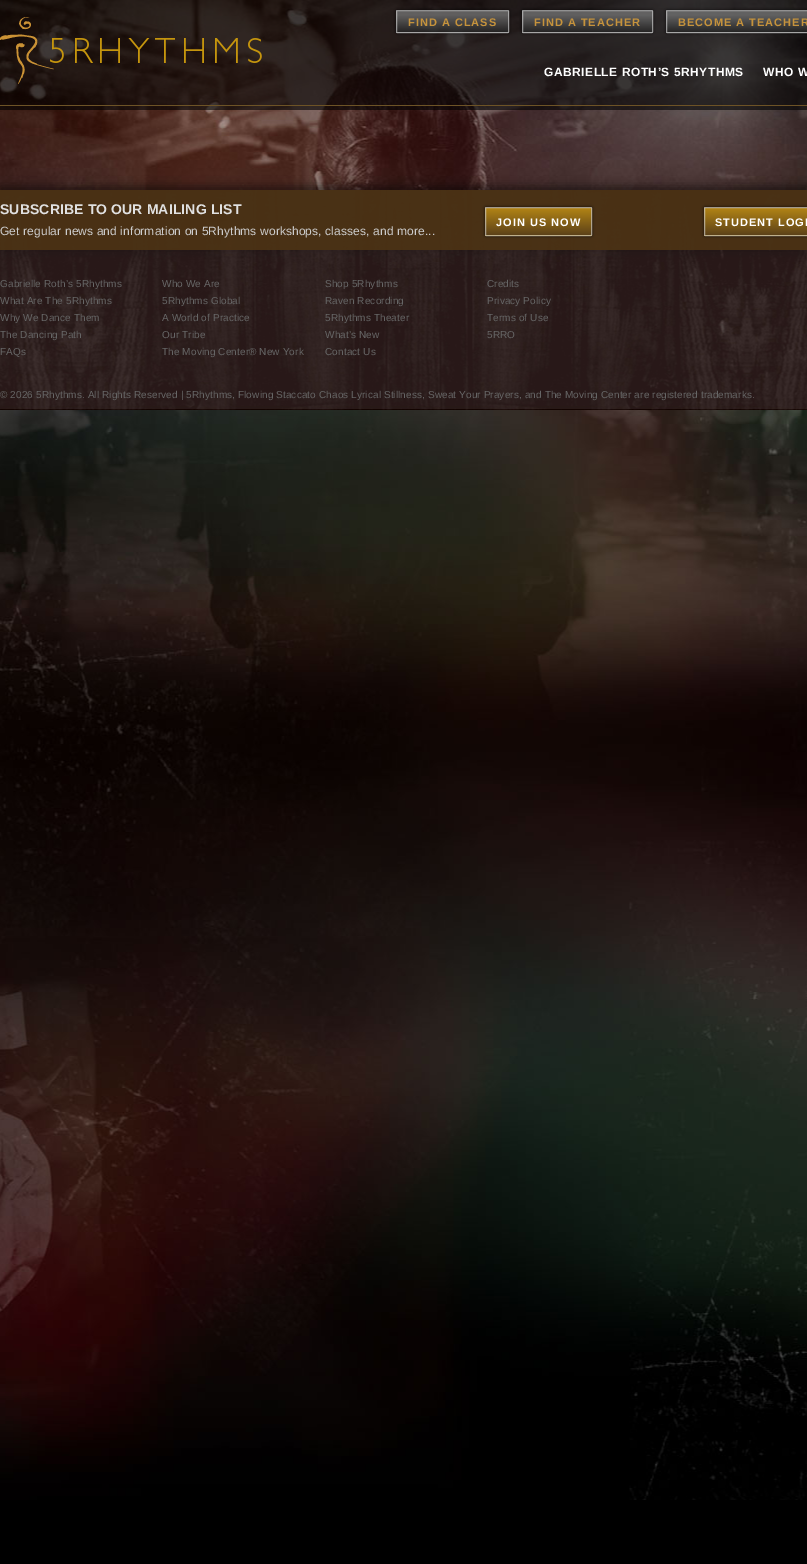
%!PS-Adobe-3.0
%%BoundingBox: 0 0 807 1564
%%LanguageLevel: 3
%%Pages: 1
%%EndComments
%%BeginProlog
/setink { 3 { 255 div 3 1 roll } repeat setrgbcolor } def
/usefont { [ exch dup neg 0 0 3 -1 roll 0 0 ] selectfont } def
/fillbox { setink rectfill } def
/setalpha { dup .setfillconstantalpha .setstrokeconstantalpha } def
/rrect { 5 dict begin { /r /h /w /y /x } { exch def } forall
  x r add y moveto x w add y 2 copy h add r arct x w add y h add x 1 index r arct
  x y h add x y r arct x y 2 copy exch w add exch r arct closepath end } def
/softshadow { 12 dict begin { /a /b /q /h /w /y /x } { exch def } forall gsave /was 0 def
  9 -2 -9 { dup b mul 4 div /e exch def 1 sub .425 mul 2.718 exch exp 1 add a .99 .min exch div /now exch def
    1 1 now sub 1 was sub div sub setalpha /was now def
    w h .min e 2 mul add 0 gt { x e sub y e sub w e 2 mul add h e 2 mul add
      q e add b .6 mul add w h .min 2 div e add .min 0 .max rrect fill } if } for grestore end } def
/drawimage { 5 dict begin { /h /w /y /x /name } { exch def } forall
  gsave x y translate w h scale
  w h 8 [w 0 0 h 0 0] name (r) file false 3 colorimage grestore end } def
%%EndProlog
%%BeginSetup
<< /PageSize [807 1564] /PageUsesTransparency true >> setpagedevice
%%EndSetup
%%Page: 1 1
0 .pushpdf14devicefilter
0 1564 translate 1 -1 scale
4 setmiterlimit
0 0 807 1564 0 0 0 fillbox
(assets/img1.rgb) 0 800 807 700 drawimage
(assets/img2.rgb) 0 0 807 800 drawimage
0.6 setalpha
0 0 807 110 0 0 0 fillbox
1 setalpha
0 105 807 1 109 83 38 fillbox
(assets/img3.rgb) 0 17 262 67 drawimage
gsave
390 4 moveto 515 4 lineto 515 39 lineto 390 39 lineto closepath 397 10 moveto 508 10 lineto 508.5 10 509 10.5 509 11 curveto 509 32 lineto 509 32.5 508.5 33 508 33 curveto 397 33 lineto 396.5 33 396 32.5 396 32 curveto 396 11 lineto 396 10.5 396.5 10 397 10 curveto closepath eoclip newpath
0 0 0 setink
396 10 113 23 1 1.5 0.7 softshadow
grestore
0.8 setalpha
gsave 397 10 moveto 508 10 lineto 508.5 10 509 10.5 509 11 curveto 396 11 lineto 396 10.5 396.5 10 397 10 curveto closepath clip newpath
<< /ShadingType 2 /ColorSpace /DeviceRGB /Coords [453 -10 453 11] /Extend [true true] /Function << /FunctionType 3 /Domain [0 1] /Functions [<< /FunctionType 2 /Domain [0 1] /C0 [0.439 0.439 0.439] /C1 [0.439 0.439 0.439] /N 1 >> << /FunctionType 2 /Domain [0 1] /C0 [0.439 0.439 0.439] /C1 [0.145 0.145 0.145] /N 1 >>] /Bounds [0.2] /Encode [0 1 0 1] >> >> shfill grestore
gsave 396 11 moveto 509 11 lineto 509 32 lineto 396 32 lineto closepath clip newpath
<< /ShadingType 2 /ColorSpace /DeviceRGB /Coords [453 11 453 32] /Extend [true true] /Function << /FunctionType 3 /Domain [0 1] /Functions [<< /FunctionType 2 /Domain [0 1] /C0 [0.439 0.439 0.439] /C1 [0.439 0.439 0.439] /N 1 >> << /FunctionType 2 /Domain [0 1] /C0 [0.439 0.439 0.439] /C1 [0.145 0.145 0.145] /N 1 >>] /Bounds [0.2] /Encode [0 1 0 1] >> >> shfill grestore
gsave 396 32 moveto 509 32 lineto 509 32.5 508.5 33 508 33 curveto 397 33 lineto 396.5 33 396 32.5 396 32 curveto closepath clip newpath
<< /ShadingType 2 /ColorSpace /DeviceRGB /Coords [453 32 453 53] /Extend [true true] /Function << /FunctionType 3 /Domain [0 1] /Functions [<< /FunctionType 2 /Domain [0 1] /C0 [0.439 0.439 0.439] /C1 [0.439 0.439 0.439] /N 1 >> << /FunctionType 2 /Domain [0 1] /C0 [0.439 0.439 0.439] /C1 [0.145 0.145 0.145] /N 1 >>] /Bounds [0.2] /Encode [0 1 0 1] >> >> shfill grestore
0.65 setalpha
204 204 204 setink
396.5 10.5 112 22 0.5 rrect stroke
/LiberationSans-Bold 11 usefont
1 setalpha
198 147 60 setink
408 26 moveto 1 0 (FIND A CLASS) ashow
gsave
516 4 moveto 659 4 lineto 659 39 lineto 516 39 lineto closepath 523 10 moveto 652 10 lineto 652.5 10 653 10.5 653 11 curveto 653 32 lineto 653 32.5 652.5 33 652 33 curveto 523 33 lineto 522.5 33 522 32.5 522 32 curveto 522 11 lineto 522 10.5 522.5 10 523 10 curveto closepath eoclip newpath
0 0 0 setink
522 10 131 23 1 1.5 0.7 softshadow
grestore
0.8 setalpha
gsave 523 10 moveto 652 10 lineto 652.5 10 653 10.5 653 11 curveto 522 11 lineto 522 10.5 522.5 10 523 10 curveto closepath clip newpath
<< /ShadingType 2 /ColorSpace /DeviceRGB /Coords [588 -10 588 11] /Extend [true true] /Function << /FunctionType 3 /Domain [0 1] /Functions [<< /FunctionType 2 /Domain [0 1] /C0 [0.439 0.439 0.439] /C1 [0.439 0.439 0.439] /N 1 >> << /FunctionType 2 /Domain [0 1] /C0 [0.439 0.439 0.439] /C1 [0.145 0.145 0.145] /N 1 >>] /Bounds [0.2] /Encode [0 1 0 1] >> >> shfill grestore
gsave 522 11 moveto 653 11 lineto 653 32 lineto 522 32 lineto closepath clip newpath
<< /ShadingType 2 /ColorSpace /DeviceRGB /Coords [588 11 588 32] /Extend [true true] /Function << /FunctionType 3 /Domain [0 1] /Functions [<< /FunctionType 2 /Domain [0 1] /C0 [0.439 0.439 0.439] /C1 [0.439 0.439 0.439] /N 1 >> << /FunctionType 2 /Domain [0 1] /C0 [0.439 0.439 0.439] /C1 [0.145 0.145 0.145] /N 1 >>] /Bounds [0.2] /Encode [0 1 0 1] >> >> shfill grestore
gsave 522 32 moveto 653 32 lineto 653 32.5 652.5 33 652 33 curveto 523 33 lineto 522.5 33 522 32.5 522 32 curveto closepath clip newpath
<< /ShadingType 2 /ColorSpace /DeviceRGB /Coords [588 32 588 53] /Extend [true true] /Function << /FunctionType 3 /Domain [0 1] /Functions [<< /FunctionType 2 /Domain [0 1] /C0 [0.439 0.439 0.439] /C1 [0.439 0.439 0.439] /N 1 >> << /FunctionType 2 /Domain [0 1] /C0 [0.439 0.439 0.439] /C1 [0.145 0.145 0.145] /N 1 >>] /Bounds [0.2] /Encode [0 1 0 1] >> >> shfill grestore
0.65 setalpha
204 204 204 setink
522.5 10.5 130 22 0.5 rrect stroke
1 setalpha
198 147 60 setink
534 26 moveto 1 0 (FIND A TEACHER) ashow
gsave
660 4 moveto 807 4 lineto 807 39 lineto 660 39 lineto closepath 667 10 moveto 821 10 lineto 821.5 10 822 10.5 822 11 curveto 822 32 lineto 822 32.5 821.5 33 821 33 curveto 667 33 lineto 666.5 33 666 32.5 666 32 curveto 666 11 lineto 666 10.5 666.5 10 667 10 curveto closepath eoclip newpath
0 0 0 setink
666 10 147 23 1 1.5 0.7 softshadow
grestore
0.8 setalpha
gsave 667 10 moveto 807 10 lineto 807.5 10 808 10.5 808 11 curveto 666 11 lineto 666 10.5 666.5 10 667 10 curveto closepath clip newpath
<< /ShadingType 2 /ColorSpace /DeviceRGB /Coords [744 -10 744 11] /Extend [true true] /Function << /FunctionType 3 /Domain [0 1] /Functions [<< /FunctionType 2 /Domain [0 1] /C0 [0.439 0.439 0.439] /C1 [0.439 0.439 0.439] /N 1 >> << /FunctionType 2 /Domain [0 1] /C0 [0.439 0.439 0.439] /C1 [0.145 0.145 0.145] /N 1 >>] /Bounds [0.2] /Encode [0 1 0 1] >> >> shfill grestore
gsave 666 11 moveto 807 11 lineto 807 32 lineto 666 32 lineto closepath clip newpath
<< /ShadingType 2 /ColorSpace /DeviceRGB /Coords [744 11 744 32] /Extend [true true] /Function << /FunctionType 3 /Domain [0 1] /Functions [<< /FunctionType 2 /Domain [0 1] /C0 [0.439 0.439 0.439] /C1 [0.439 0.439 0.439] /N 1 >> << /FunctionType 2 /Domain [0 1] /C0 [0.439 0.439 0.439] /C1 [0.145 0.145 0.145] /N 1 >>] /Bounds [0.2] /Encode [0 1 0 1] >> >> shfill grestore
gsave 666 32 moveto 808 32 lineto 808 32.5 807.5 33 807 33 curveto 667 33 lineto 666.5 33 666 32.5 666 32 curveto closepath clip newpath
<< /ShadingType 2 /ColorSpace /DeviceRGB /Coords [744 32 744 53] /Extend [true true] /Function << /FunctionType 3 /Domain [0 1] /Functions [<< /FunctionType 2 /Domain [0 1] /C0 [0.439 0.439 0.439] /C1 [0.439 0.439 0.439] /N 1 >> << /FunctionType 2 /Domain [0 1] /C0 [0.439 0.439 0.439] /C1 [0.145 0.145 0.145] /N 1 >>] /Bounds [0.2] /Encode [0 1 0 1] >> >> shfill grestore
0.65 setalpha
204 204 204 setink
666.5 10.5 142 22 0.5 rrect stroke
1 setalpha
198 147 60 setink
678 26 moveto 1 0 (BECOME A TEACHER) ashow
/LiberationSans-Bold 12 usefont
255 255 255 setink
544 76 moveto 0.5 0 (GABRIELLE ROTH’S 5RHYTHMS) ashow
763 76 moveto 0.5 0 (WHO W) ashow
(assets/img4.rgb) 0 190 807 220 drawimage
gsave
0 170 moveto 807 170 lineto 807 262 lineto 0 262 lineto closepath 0 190 moveto 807 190 lineto 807 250 lineto 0 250 lineto closepath eoclip newpath
0 0 0 setink
0 186 807 60 0 5 0.5 softshadow
grestore
0.93 setalpha
0 190 807 60 75 50 20 fillbox
/LiberationSans-Bold 14 usefont
1 setalpha
225 225 225 setink
0 214 moveto 0.12 0 (SUBSCRIBE TO OUR MAILING LIST) ashow
/LiberationSans-Regular 12 usefont
204 204 204 setink
0 235 moveto 0.12 0 (Get regular news and information on 5Rhythms workshops, classes, and more...) ashow
0 0 0 setink
485 207 107 29 1 1.5 0.7 softshadow
0.8 setalpha
gsave 486 207 moveto 591 207 lineto 591.5 207 592 207.5 592 208 curveto 485 208 lineto 485 207.5 485.5 207 486 207 curveto closepath clip newpath
<< /ShadingType 2 /ColorSpace /DeviceRGB /Coords [539 181 539 208] /Extend [true true] /Function << /FunctionType 2 /Domain [0 1] /C0 [0.8 0.6 0.082] /C1 [0.384 0.275 0.102] /N 1 >> >> shfill grestore
1 setalpha
gsave 485 208 moveto 592 208 lineto 592 235 lineto 485 235 lineto closepath clip newpath
<< /ShadingType 2 /ColorSpace /DeviceRGB /Coords [539 208 539 235] /Extend [true true] /Function << /FunctionType 2 /Domain [0 1] /C0 [0.698 0.518 0.082] /C1 [0.365 0.259 0.098] /N 1 >> >> shfill grestore
0.8 setalpha
gsave 485 235 moveto 592 235 lineto 592 235.5 591.5 236 591 236 curveto 486 236 lineto 485.5 236 485 235.5 485 235 curveto closepath clip newpath
<< /ShadingType 2 /ColorSpace /DeviceRGB /Coords [539 235 539 262] /Extend [true true] /Function << /FunctionType 2 /Domain [0 1] /C0 [0.8 0.6 0.082] /C1 [0.384 0.275 0.102] /N 1 >> >> shfill grestore
0.65 setalpha
204 204 204 setink
485.5 207.5 106 28 0.5 rrect stroke
/LiberationSans-Bold 11 usefont
1 setalpha
255 255 255 setink
496 226 moveto 1 0 (JOIN US NOW) ashow
0 0 0 setink
704 207 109 29 1 1.5 0.7 softshadow
0.8 setalpha
gsave 705 207 moveto 807 207 lineto 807.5 207 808 207.5 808 208 curveto 704 208 lineto 704 207.5 704.5 207 705 207 curveto closepath clip newpath
<< /ShadingType 2 /ColorSpace /DeviceRGB /Coords [767 181 767 208] /Extend [true true] /Function << /FunctionType 2 /Domain [0 1] /C0 [0.8 0.6 0.082] /C1 [0.384 0.275 0.102] /N 1 >> >> shfill grestore
1 setalpha
gsave 704 208 moveto 807 208 lineto 807 235 lineto 704 235 lineto closepath clip newpath
<< /ShadingType 2 /ColorSpace /DeviceRGB /Coords [767 208 767 235] /Extend [true true] /Function << /FunctionType 2 /Domain [0 1] /C0 [0.698 0.518 0.082] /C1 [0.365 0.259 0.098] /N 1 >> >> shfill grestore
0.8 setalpha
gsave 704 235 moveto 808 235 lineto 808 235.5 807.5 236 807 236 curveto 705 236 lineto 704.5 236 704 235.5 704 235 curveto closepath clip newpath
<< /ShadingType 2 /ColorSpace /DeviceRGB /Coords [767 235 767 262] /Extend [true true] /Function << /FunctionType 2 /Domain [0 1] /C0 [0.8 0.6 0.082] /C1 [0.384 0.275 0.102] /N 1 >> >> shfill grestore
0.65 setalpha
204 204 204 setink
704.5 207.5 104 28 0.5 rrect stroke
1 setalpha
255 255 255 setink
715 226 moveto 1 0 (STUDENT LOGI) ashow
/LiberationSans-Regular 10 usefont
102 102 102 setink
0 287 moveto 0.12 0 (Gabrielle Roth’s 5Rhythms) ashow
0 304 moveto 0.12 0 (What Are The 5Rhythms) ashow
0 321 moveto 0.12 0 (Why We Dance Them) ashow
0 338 moveto 0.12 0 (The Dancing Path) ashow
0 355 moveto 0.12 0 (FAQs) ashow
162 287 moveto 0.12 0 (Who We Are) ashow
162 304 moveto 0.12 0 (5Rhythms Global) ashow
162 321 moveto 0.12 0 (A World of Practice) ashow
162 338 moveto 0.12 0 (Our Tribe) ashow
162 355 moveto 0.12 0 (The Moving Center® New York) ashow
325 287 moveto 0.12 0 (Shop 5Rhythms) ashow
325 304 moveto 0.12 0 (Raven Recording) ashow
325 321 moveto 0.12 0 (5Rhythms Theater) ashow
325 338 moveto 0.12 0 (What’s New) ashow
325 355 moveto 0.12 0 (Contact Us) ashow
487 287 moveto 0.12 0 (Credits) ashow
487 304 moveto 0.12 0 (Privacy Policy) ashow
487 321 moveto 0.12 0 (Terms of Use) ashow
487 338 moveto 0.12 0 (5RRO) ashow
0 398 moveto 0.12 0 (© 2026 5Rhythms. All Rights Reserved | 5Rhythms, Flowing Staccato Chaos Lyrical Stillness, Sweat Your Prayers, and The Moving Center are registered trademarks.) ashow
.poppdf14devicefilter showpage
%%EOF
